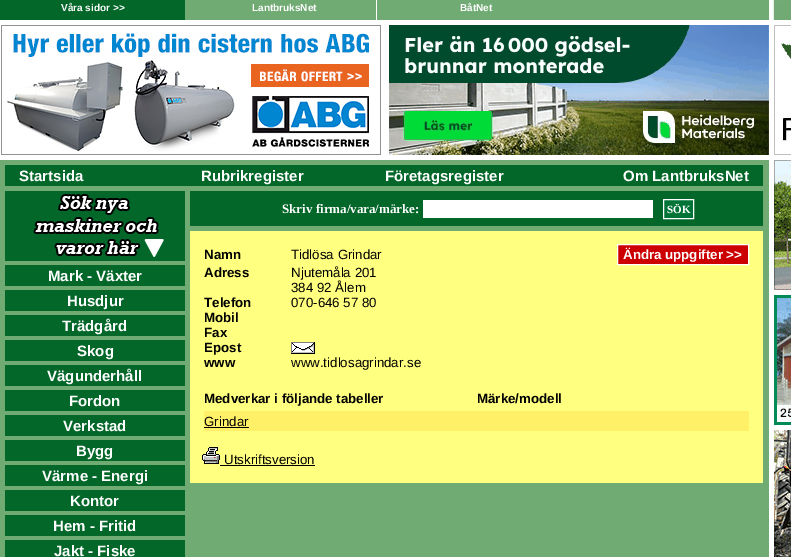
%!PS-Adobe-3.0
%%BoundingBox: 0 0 791 557
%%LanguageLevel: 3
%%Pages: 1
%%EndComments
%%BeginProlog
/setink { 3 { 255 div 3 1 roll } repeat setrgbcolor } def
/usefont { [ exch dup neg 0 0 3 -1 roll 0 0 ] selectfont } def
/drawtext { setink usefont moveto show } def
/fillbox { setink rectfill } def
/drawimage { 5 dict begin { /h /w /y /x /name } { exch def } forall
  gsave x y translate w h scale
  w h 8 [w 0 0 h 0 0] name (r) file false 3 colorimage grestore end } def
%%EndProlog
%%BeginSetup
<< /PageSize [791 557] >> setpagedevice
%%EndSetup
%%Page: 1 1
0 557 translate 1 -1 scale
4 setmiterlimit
0 0 791 557 255 255 255 fillbox
185 0 584 20 113 171 116 fillbox
0 0 185 20 3 103 41 fillbox
(Våra sidor >>) 61 11 /LiberationSans-Bold 10 255 255 255 drawtext
376 0 1 20 255 255 255 fillbox
(LantbruksNet) 252 11 /LiberationSans-Bold 10 255 255 255 drawtext
(BåtNet) 460 11 /LiberationSans-Bold 10 255 255 255 drawtext
(assets/img1.rgb) 772 0 19 20 drawimage
(assets/img2.rgb) 1 25 380 130 drawimage
(assets/img3.rgb) 389 25 380 130 drawimage
(assets/img4.rgb) 774 25 17 130 drawimage
0 160 769 397 113 171 116 fillbox
5 165 758 21 3 103 41 fillbox
(Startsida) 19 181 /LiberationSans-Bold 15 255 255 255 drawtext
(Rubrikregister) 201 181 /LiberationSans-Bold 15 255 255 255 drawtext
(Företagsregister) 385 181 /LiberationSans-Bold 15 255 255 255 drawtext
(Om LantbruksNet) 623 181 /LiberationSans-Bold 15 255 255 255 drawtext
5 191 180 70 3 103 41 fillbox
(assets/img5.rgb) 33 194 131 63 drawimage
5 265 180 21 3 103 41 fillbox
(Mark - Växter) 48 281 /LiberationSans-Bold 15 255 255 255 drawtext
5 290 180 21 3 103 41 fillbox
(Husdjur) 67 306 /LiberationSans-Bold 15 255 255 255 drawtext
5 315 180 21 3 103 41 fillbox
(Trädgård) 62 331 /LiberationSans-Bold 15 255 255 255 drawtext
5 340 180 21 3 103 41 fillbox
(Skog) 77 356 /LiberationSans-Bold 15 255 255 255 drawtext
5 365 180 21 3 103 41 fillbox
(Vägunderhåll) 47 381 /LiberationSans-Bold 15 255 255 255 drawtext
5 390 180 21 3 103 41 fillbox
(Fordon) 69 406 /LiberationSans-Bold 15 255 255 255 drawtext
5 415 180 21 3 103 41 fillbox
(Verkstad) 63 431 /LiberationSans-Bold 15 255 255 255 drawtext
5 440 180 21 3 103 41 fillbox
(Bygg) 76 456 /LiberationSans-Bold 15 255 255 255 drawtext
5 465 180 21 3 103 41 fillbox
(Värme - Energi) 42 481 /LiberationSans-Bold 15 255 255 255 drawtext
5 490 180 21 3 103 41 fillbox
(Kontor) 70 506 /LiberationSans-Bold 15 255 255 255 drawtext
5 515 180 21 3 103 41 fillbox
(Hem - Fritid) 53 531 /LiberationSans-Bold 15 255 255 255 drawtext
5 540 180 17 3 103 41 fillbox
(Jakt - Fiske) 54 556 /LiberationSans-Bold 15 255 255 255 drawtext
190 191 573 35 3 103 41 fillbox
(Skriv firma/vara/märke:) 282 213 /LiberationSerif-Bold 13 255 255 255 drawtext
423 200 230 18 255 255 255 fillbox
0 115 54 setink
663.5 199.5 moveto 693.5 199.5 lineto 693.5 218.5 lineto 663.5 218.5 lineto closepath gsave fill grestore
255 255 255 setink
stroke
(SÖK) 667 213 /LiberationSerif-Bold 11 255 255 255 drawtext
190 231 573 252 255 255 128 fillbox
(Namn) 204 259 /LiberationSans-Bold 13.3 0 0 0 drawtext
(Tidlösa Grindar) 291 259 /LiberationSans-Regular 13.3 0 0 0 drawtext
204 0 0 setink
617.5 244.5 moveto 748.5 244.5 lineto 748.5 264.5 lineto 617.5 264.5 lineto closepath gsave fill grestore
255 255 255 setink
stroke
(Ändra uppgifter >>) 623 259 /LiberationSans-Bold 13.3 255 255 255 drawtext
(Adress) 204 277 /LiberationSans-Bold 13.3 0 0 0 drawtext
(Njutemåla 201) 291 277 /LiberationSans-Regular 13.3 0 0 0 drawtext
(384 92 Ålem) 291 292 /LiberationSans-Regular 13.3 0 0 0 drawtext
(Telefon) 204 307 /LiberationSans-Bold 13.3 0 0 0 drawtext
(070-646 57 80) 291 307 /LiberationSans-Regular 13.3 0 0 0 drawtext
(Mobil) 204 322 /LiberationSans-Bold 13.3 0 0 0 drawtext
(Fax) 204 337 /LiberationSans-Bold 13.3 0 0 0 drawtext
(Epost) 204 352 /LiberationSans-Bold 13.3 0 0 0 drawtext
(assets/img6.rgb) 291 342 24 12 drawimage
(www) 204 367 /LiberationSans-Bold 13.3 0 0 0 drawtext
(www.tidlosagrindar.se) 291 367 /LiberationSans-Regular 13.3 0 0 0 drawtext
(Medverkar i följande tabeller) 204 403 /LiberationSans-Bold 13.3 0 0 0 drawtext
(Märke/modell) 477 403 /LiberationSans-Bold 13.3 0 0 0 drawtext
204 411 545 20 255 240 104 fillbox
(Grindar) 204 426 /LiberationSans-Regular 13.3 0 0 0 drawtext
204 427 45 1 0 0 0 fillbox
(assets/img7.rgb) 202 447 18 17 drawimage
(Utskriftsversion) 224 464 /LiberationSans-Regular 13.3 0 0 0 drawtext
220 465 95 1 0 0 0 fillbox
(assets/img8.rgb) 774 160 17 130 drawimage
(assets/img9.rgb) 774 295 17 130 drawimage
(assets/img10.rgb) 774 430 17 127 drawimage
showpage
%%EOF
